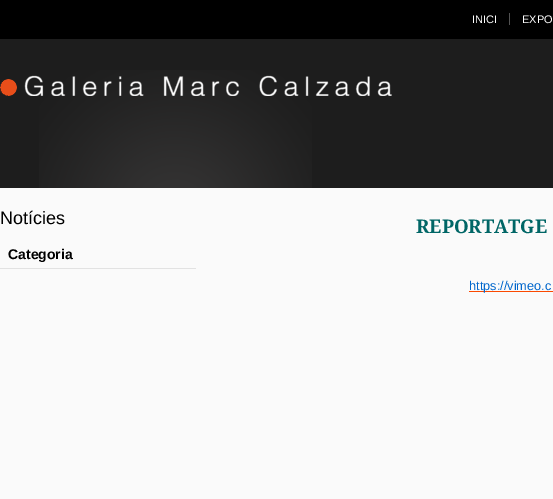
%!PS-Adobe-3.0
%%BoundingBox: 0 0 553 499
%%LanguageLevel: 3
%%Pages: 1
%%EndComments
%%BeginProlog
/setink { 3 { 255 div 3 1 roll } repeat setrgbcolor } def
/usefont { [ exch dup neg 0 0 3 -1 roll 0 0 ] selectfont } def
/drawtext { setink usefont moveto show } def
/fillbox { setink rectfill } def
/drawimage { 5 dict begin { /h /w /y /x /name } { exch def } forall
  gsave x y translate w h scale
  w h 8 [w 0 0 h 0 0] name (r) file false 3 colorimage grestore end } def
%%EndProlog
%%BeginSetup
<< /PageSize [553 499] >> setpagedevice
%%EndSetup
%%Page: 1 1
0 499 translate 1 -1 scale
4 setmiterlimit
0 0 553 499 0 0 0 fillbox
(INICI) 472 23 /LiberationSans-Regular 11 255 255 255 drawtext
509 13 1 12 82 82 82 fillbox
(EXPO) 522 23 /LiberationSans-Regular 11 255 255 255 drawtext
0 39 553 149 29 29 29 fillbox
(assets/img1.rgb) 39 70 273 118 drawimage
(assets/img2.rgb) 0 75 392 21 drawimage
0 188 553 311 250 250 250 fillbox
(Notícies) 0 224 /LiberationSans-Regular 18 0 0 0 drawtext
0 268 196 1 226 226 226 fillbox
(Categoria) 8 259 /LiberationSans-Bold 14 0 0 0 drawtext
(REPORTATGE) 416 233 /NotoSerif-Bold 18.75 0 102 102 drawtext
469 291 84 1 251 73 0 fillbox
(https://vimeo.c) 469 290 /LiberationSans-Regular 12.75 0 102 204 drawtext
showpage
%%EOF
